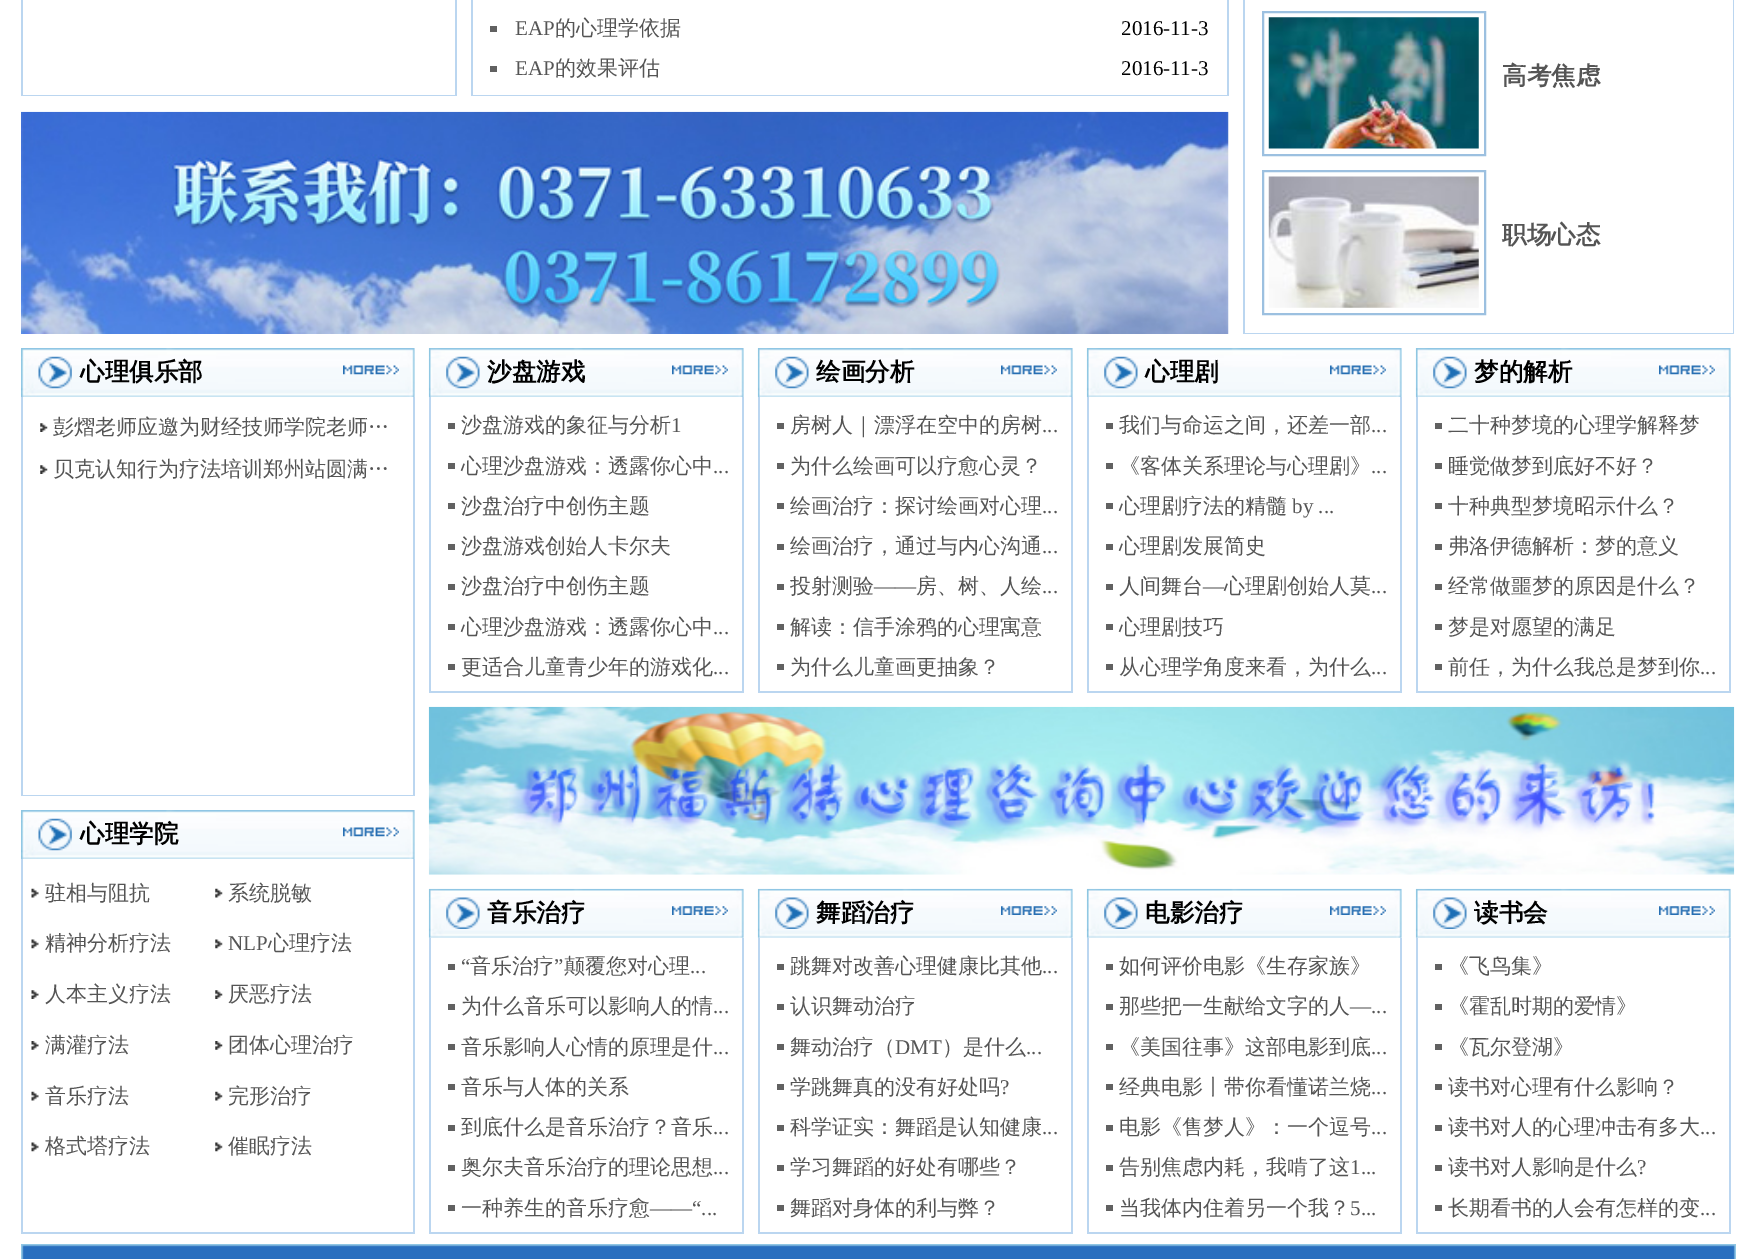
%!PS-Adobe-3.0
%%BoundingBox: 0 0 1754 1259
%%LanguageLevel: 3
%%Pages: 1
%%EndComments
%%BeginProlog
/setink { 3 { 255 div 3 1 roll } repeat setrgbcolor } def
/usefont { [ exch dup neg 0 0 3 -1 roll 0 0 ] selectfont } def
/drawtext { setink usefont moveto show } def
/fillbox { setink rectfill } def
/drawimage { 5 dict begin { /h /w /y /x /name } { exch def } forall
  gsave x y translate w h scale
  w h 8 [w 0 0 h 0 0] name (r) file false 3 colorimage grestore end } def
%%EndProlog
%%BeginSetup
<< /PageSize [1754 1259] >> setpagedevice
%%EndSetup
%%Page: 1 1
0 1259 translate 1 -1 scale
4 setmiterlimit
0 0 1754 1259 255 255 255 fillbox
455 0 2 96 187 214 240 fillbox
21 95 436 1 187 214 240 fillbox
21 0 2 96 187 214 240 fillbox
1227 0 2 96 187 214 240 fillbox
471 95 758 1 187 214 240 fillbox
471 0 2 96 187 214 240 fillbox
490 26 7 6 97 97 97 fillbox
(EAP) 515 35 /LiberationSerif-Regular 21 85 85 85 drawtext
(的心理学依据) 555 35 /WenQuanYiZenHei-Medium 21 85 85 85 drawtext
(2016-11-3) 1121 35 /LiberationSerif-Regular 21 0 0 0 drawtext
490 66 7 6 97 97 97 fillbox
(EAP) 515 75 /LiberationSerif-Regular 21 85 85 85 drawtext
(的效果评估) 555 75 /WenQuanYiZenHei-Medium 21 85 85 85 drawtext
(2016-11-3) 1121 75 /LiberationSerif-Regular 21 0 0 0 drawtext
(assets/img1.rgb) 21 111 1208 223 drawimage
1733 0 1 334 187 214 240 fillbox
1243 333 491 1 187 214 240 fillbox
1243 0 2 334 187 214 240 fillbox
156 192 224 setink
2 setlinewidth
1263 12 222 143 rectstroke
(assets/img2.rgb) 1268 17 211 132 drawimage
(高考焦虑) 1502 84 /WenQuanYiZenHei-Bold 24.5 85 85 85 drawtext
156 192 224 setink
1263 171 222 143 rectstroke
(assets/img3.rgb) 1268 176 211 132 drawimage
(职场心态) 1502 243 /WenQuanYiZenHei-Bold 24.5 85 85 85 drawtext
(assets/img4.rgb) 21 348 394 49 drawimage
(assets/img5.rgb) 38 356 34 33 drawimage
(心理俱乐部) 80 380 /WenQuanYiZenHei-Bold 24.5 0 0 0 drawtext
(assets/img6.rgb) 343 365 56 10 drawimage
413 397 2 399 187 214 240 fillbox
21 795 394 1 187 214 240 fillbox
21 397 2 399 187 214 240 fillbox
(assets/img7.rgb) 40 423 8 9 drawimage
(彭熠老师应邀为财经技师学院老师…) 53 434 /WenQuanYiZenHei-Medium 21 85 85 85 drawtext
(assets/img7.rgb) 40 465 8 9 drawimage
(贝克认知行为疗法培训郑州站圆满…) 53 476 /WenQuanYiZenHei-Medium 21 85 85 85 drawtext
(assets/img4.rgb) 21 810 394 49 drawimage
(assets/img5.rgb) 38 818 34 33 drawimage
(心理学院) 80 842 /WenQuanYiZenHei-Bold 24.5 0 0 0 drawtext
(assets/img6.rgb) 343 827 56 10 drawimage
413 859 2 375 187 214 240 fillbox
21 1232 394 2 187 214 240 fillbox
21 859 2 375 187 214 240 fillbox
(assets/img8.rgb) 31 888 8 10 drawimage
(驻相与阻抗) 45 900 /WenQuanYiZenHei-Medium 21 85 85 85 drawtext
(assets/img9.rgb) 215 888 8 10 drawimage
(系统脱敏) 228 900 /WenQuanYiZenHei-Medium 21 85 85 85 drawtext
(assets/img10.rgb) 31 939 8 10 drawimage
(精神分析疗法) 45 950 /WenQuanYiZenHei-Medium 21 85 85 85 drawtext
(assets/img11.rgb) 215 939 8 10 drawimage
(NLP) 228 950 /LiberationSerif-Regular 21 85 85 85 drawtext
(心理疗法) 268 950 /WenQuanYiZenHei-Medium 21 85 85 85 drawtext
(assets/img12.rgb) 31 990 8 9 drawimage
(人本主义疗法) 45 1001 /WenQuanYiZenHei-Medium 21 85 85 85 drawtext
(assets/img13.rgb) 215 990 8 9 drawimage
(厌恶疗法) 228 1001 /WenQuanYiZenHei-Medium 21 85 85 85 drawtext
(assets/img14.rgb) 31 1041 8 9 drawimage
(满灌疗法) 45 1052 /WenQuanYiZenHei-Medium 21 85 85 85 drawtext
(assets/img15.rgb) 215 1041 8 9 drawimage
(团体心理治疗) 228 1052 /WenQuanYiZenHei-Medium 21 85 85 85 drawtext
(assets/img8.rgb) 31 1091 8 10 drawimage
(音乐疗法) 45 1103 /WenQuanYiZenHei-Medium 21 85 85 85 drawtext
(assets/img9.rgb) 215 1091 8 10 drawimage
(完形治疗) 228 1103 /WenQuanYiZenHei-Medium 21 85 85 85 drawtext
(assets/img10.rgb) 31 1142 8 10 drawimage
(格式塔疗法) 45 1153 /WenQuanYiZenHei-Medium 21 85 85 85 drawtext
(assets/img11.rgb) 215 1142 8 10 drawimage
(催眠疗法) 228 1153 /WenQuanYiZenHei-Medium 21 85 85 85 drawtext
(assets/img16.rgb) 428 348 316 49 drawimage
(assets/img17.rgb) 446 356 34 33 drawimage
(沙盘游戏) 487 380 /WenQuanYiZenHei-Bold 24.5 0 0 0 drawtext
(assets/img6.rgb) 672 365 56 10 drawimage
742 397 2 296 187 214 240 fillbox
429 691 315 2 187 214 240 fillbox
429 397 2 296 187 214 240 fillbox
448 423 7 6 97 97 97 fillbox
(沙盘游戏的象征与分析) 461 432 /WenQuanYiZenHei-Medium 21 85 85 85 drawtext
(1) 671 432 /LiberationSerif-Regular 21 85 85 85 drawtext
448 463 7 6 97 97 97 fillbox
(心理沙盘游戏：透露你心中) 461 473 /WenQuanYiZenHei-Medium 21 85 85 85 drawtext
(...) 713 473 /LiberationSerif-Regular 21 85 85 85 drawtext
448 503 7 6 97 97 97 fillbox
(沙盘治疗中创伤主题) 461 513 /WenQuanYiZenHei-Medium 21 85 85 85 drawtext
448 544 7 6 97 97 97 fillbox
(沙盘游戏创始人卡尔夫) 461 553 /WenQuanYiZenHei-Medium 21 85 85 85 drawtext
448 584 7 6 97 97 97 fillbox
(沙盘治疗中创伤主题) 461 593 /WenQuanYiZenHei-Medium 21 85 85 85 drawtext
448 624 7 6 97 97 97 fillbox
(心理沙盘游戏：透露你心中) 461 634 /WenQuanYiZenHei-Medium 21 85 85 85 drawtext
(...) 713 634 /LiberationSerif-Regular 21 85 85 85 drawtext
448 664 7 6 97 97 97 fillbox
(更适合儿童青少年的游戏化) 461 674 /WenQuanYiZenHei-Medium 21 85 85 85 drawtext
(...) 713 674 /LiberationSerif-Regular 21 85 85 85 drawtext
(assets/img16.rgb) 757 348 316 49 drawimage
(assets/img17.rgb) 775 356 34 33 drawimage
(绘画分析) 816 380 /WenQuanYiZenHei-Bold 24.5 0 0 0 drawtext
(assets/img6.rgb) 1001 365 56 10 drawimage
1071 397 2 296 187 214 240 fillbox
758 691 315 2 187 214 240 fillbox
758 397 2 296 187 214 240 fillbox
777 423 7 6 97 97 97 fillbox
(房树人｜漂浮在空中的房树) 790 432 /WenQuanYiZenHei-Medium 21 85 85 85 drawtext
(...) 1042 432 /LiberationSerif-Regular 21 85 85 85 drawtext
777 463 7 6 97 97 97 fillbox
(为什么绘画可以疗愈心灵？) 790 473 /WenQuanYiZenHei-Medium 21 85 85 85 drawtext
777 503 7 6 97 97 97 fillbox
(绘画治疗：探讨绘画对心理) 790 513 /WenQuanYiZenHei-Medium 21 85 85 85 drawtext
(...) 1042 513 /LiberationSerif-Regular 21 85 85 85 drawtext
777 544 7 6 97 97 97 fillbox
(绘画治疗，通过与内心沟通) 790 553 /WenQuanYiZenHei-Medium 21 85 85 85 drawtext
(...) 1042 553 /LiberationSerif-Regular 21 85 85 85 drawtext
777 584 7 6 97 97 97 fillbox
(投射测验) 790 593 /WenQuanYiZenHei-Medium 21 85 85 85 drawtext
(——) 874 593 /LiberationSerif-Regular 21 85 85 85 drawtext
(房、树、人绘) 916 593 /WenQuanYiZenHei-Medium 21 85 85 85 drawtext
(...) 1042 593 /LiberationSerif-Regular 21 85 85 85 drawtext
777 624 7 6 97 97 97 fillbox
(解读：信手涂鸦的心理寓意) 790 634 /WenQuanYiZenHei-Medium 21 85 85 85 drawtext
777 664 7 6 97 97 97 fillbox
(为什么儿童画更抽象？) 790 674 /WenQuanYiZenHei-Medium 21 85 85 85 drawtext
(assets/img18.rgb) 1086 348 316 49 drawimage
(assets/img17.rgb) 1104 356 34 33 drawimage
(心理剧) 1145 380 /WenQuanYiZenHei-Bold 24.5 0 0 0 drawtext
(assets/img6.rgb) 1330 365 56 10 drawimage
1400 397 2 296 187 214 240 fillbox
1087 691 315 2 187 214 240 fillbox
1087 397 2 296 187 214 240 fillbox
1106 423 7 6 97 97 97 fillbox
(我们与命运之间，还差一部) 1119 432 /WenQuanYiZenHei-Medium 21 85 85 85 drawtext
(...) 1371 432 /LiberationSerif-Regular 21 85 85 85 drawtext
1106 463 7 6 97 97 97 fillbox
(《客体关系理论与心理剧》) 1119 473 /WenQuanYiZenHei-Medium 21 85 85 85 drawtext
(...) 1371 473 /LiberationSerif-Regular 21 85 85 85 drawtext
1106 503 7 6 97 97 97 fillbox
(心理剧疗法的精髓) 1119 513 /WenQuanYiZenHei-Medium 21 85 85 85 drawtext
(by ...) 1292 513 /LiberationSerif-Regular 21 85 85 85 drawtext
1106 544 7 6 97 97 97 fillbox
(心理剧发展简史) 1119 553 /WenQuanYiZenHei-Medium 21 85 85 85 drawtext
1106 584 7 6 97 97 97 fillbox
(人间舞台) 1119 593 /WenQuanYiZenHei-Medium 21 85 85 85 drawtext
(—) 1203 593 /LiberationSerif-Regular 21 85 85 85 drawtext
(心理剧创始人莫) 1224 593 /WenQuanYiZenHei-Medium 21 85 85 85 drawtext
(...) 1371 593 /LiberationSerif-Regular 21 85 85 85 drawtext
1106 624 7 6 97 97 97 fillbox
(心理剧技巧) 1119 634 /WenQuanYiZenHei-Medium 21 85 85 85 drawtext
1106 664 7 6 97 97 97 fillbox
(从心理学角度来看，为什么) 1119 674 /WenQuanYiZenHei-Medium 21 85 85 85 drawtext
(...) 1371 674 /LiberationSerif-Regular 21 85 85 85 drawtext
(assets/img18.rgb) 1415 348 316 49 drawimage
(assets/img17.rgb) 1433 356 34 33 drawimage
(梦的解析) 1474 380 /WenQuanYiZenHei-Bold 24.5 0 0 0 drawtext
(assets/img6.rgb) 1659 365 56 10 drawimage
1729 397 2 296 187 214 240 fillbox
1416 691 315 2 187 214 240 fillbox
1416 397 2 296 187 214 240 fillbox
1435 423 7 6 97 97 97 fillbox
(二十种梦境的心理学解释梦) 1448 432 /WenQuanYiZenHei-Medium 21 85 85 85 drawtext
1435 463 7 6 97 97 97 fillbox
(睡觉做梦到底好不好？) 1448 473 /WenQuanYiZenHei-Medium 21 85 85 85 drawtext
1435 503 7 6 97 97 97 fillbox
(十种典型梦境昭示什么？) 1448 513 /WenQuanYiZenHei-Medium 21 85 85 85 drawtext
1435 544 7 6 97 97 97 fillbox
(弗洛伊德解析：梦的意义) 1448 553 /WenQuanYiZenHei-Medium 21 85 85 85 drawtext
1435 584 7 6 97 97 97 fillbox
(经常做噩梦的原因是什么？) 1448 593 /WenQuanYiZenHei-Medium 21 85 85 85 drawtext
1435 624 7 6 97 97 97 fillbox
(梦是对愿望的满足) 1448 634 /WenQuanYiZenHei-Medium 21 85 85 85 drawtext
1435 664 7 6 97 97 97 fillbox
(前任，为什么我总是梦到你) 1448 674 /WenQuanYiZenHei-Medium 21 85 85 85 drawtext
(...) 1700 674 /LiberationSerif-Regular 21 85 85 85 drawtext
(assets/img19.rgb) 428 706 1307 169 drawimage
(assets/img20.rgb) 428 888 316 50 drawimage
(assets/img21.rgb) 446 897 34 32 drawimage
(音乐治疗) 487 921 /WenQuanYiZenHei-Bold 24.5 0 0 0 drawtext
(assets/img22.rgb) 672 906 56 9 drawimage
742 938 2 296 187 214 240 fillbox
429 1232 315 2 187 214 240 fillbox
429 938 2 296 187 214 240 fillbox
448 964 7 6 97 97 97 fillbox
(“) 461 973 /LiberationSerif-Regular 21 85 85 85 drawtext
(音乐治疗) 470 973 /WenQuanYiZenHei-Medium 21 85 85 85 drawtext
(”) 554 973 /LiberationSerif-Regular 21 85 85 85 drawtext
(颠覆您对心理) 564 973 /WenQuanYiZenHei-Medium 21 85 85 85 drawtext
(...) 690 973 /LiberationSerif-Regular 21 85 85 85 drawtext
448 1004 7 6 97 97 97 fillbox
(为什么音乐可以影响人的情) 461 1013 /WenQuanYiZenHei-Medium 21 85 85 85 drawtext
(...) 713 1013 /LiberationSerif-Regular 21 85 85 85 drawtext
448 1044 7 6 97 97 97 fillbox
(音乐影响人心情的原理是什) 461 1054 /WenQuanYiZenHei-Medium 21 85 85 85 drawtext
(...) 713 1054 /LiberationSerif-Regular 21 85 85 85 drawtext
448 1084 7 6 97 97 97 fillbox
(音乐与人体的关系) 461 1094 /WenQuanYiZenHei-Medium 21 85 85 85 drawtext
448 1125 7 6 97 97 97 fillbox
(到底什么是音乐治疗？音乐) 461 1134 /WenQuanYiZenHei-Medium 21 85 85 85 drawtext
(...) 713 1134 /LiberationSerif-Regular 21 85 85 85 drawtext
448 1165 7 6 97 97 97 fillbox
(奥尔夫音乐治疗的理论思想) 461 1174 /WenQuanYiZenHei-Medium 21 85 85 85 drawtext
(...) 713 1174 /LiberationSerif-Regular 21 85 85 85 drawtext
448 1205 7 6 97 97 97 fillbox
(一种养生的音乐疗愈) 461 1215 /WenQuanYiZenHei-Medium 21 85 85 85 drawtext
(——“...) 650 1215 /LiberationSerif-Regular 21 85 85 85 drawtext
(assets/img20.rgb) 757 888 316 50 drawimage
(assets/img21.rgb) 775 897 34 32 drawimage
(舞蹈治疗) 816 921 /WenQuanYiZenHei-Bold 24.5 0 0 0 drawtext
(assets/img22.rgb) 1001 906 56 9 drawimage
1071 938 2 296 187 214 240 fillbox
758 1232 315 2 187 214 240 fillbox
758 938 2 296 187 214 240 fillbox
777 964 7 6 97 97 97 fillbox
(跳舞对改善心理健康比其他) 790 973 /WenQuanYiZenHei-Medium 21 85 85 85 drawtext
(...) 1042 973 /LiberationSerif-Regular 21 85 85 85 drawtext
777 1004 7 6 97 97 97 fillbox
(认识舞动治疗) 790 1013 /WenQuanYiZenHei-Medium 21 85 85 85 drawtext
777 1044 7 6 97 97 97 fillbox
(舞动治疗（) 790 1054 /WenQuanYiZenHei-Medium 21 85 85 85 drawtext
(DMT) 895 1054 /LiberationSerif-Regular 21 85 85 85 drawtext
(）是什么) 942 1054 /WenQuanYiZenHei-Medium 21 85 85 85 drawtext
(...) 1026 1054 /LiberationSerif-Regular 21 85 85 85 drawtext
777 1084 7 6 97 97 97 fillbox
(学跳舞真的没有好处吗) 790 1094 /WenQuanYiZenHei-Medium 21 85 85 85 drawtext
(?) 1000 1094 /LiberationSerif-Regular 21 85 85 85 drawtext
777 1125 7 6 97 97 97 fillbox
(科学证实：舞蹈是认知健康) 790 1134 /WenQuanYiZenHei-Medium 21 85 85 85 drawtext
(...) 1042 1134 /LiberationSerif-Regular 21 85 85 85 drawtext
777 1165 7 6 97 97 97 fillbox
(学习舞蹈的好处有哪些？) 790 1174 /WenQuanYiZenHei-Medium 21 85 85 85 drawtext
777 1205 7 6 97 97 97 fillbox
(舞蹈对身体的利与弊？) 790 1215 /WenQuanYiZenHei-Medium 21 85 85 85 drawtext
(assets/img23.rgb) 1086 888 316 50 drawimage
(assets/img21.rgb) 1104 897 34 32 drawimage
(电影治疗) 1145 921 /WenQuanYiZenHei-Bold 24.5 0 0 0 drawtext
(assets/img22.rgb) 1330 906 56 9 drawimage
1400 938 2 296 187 214 240 fillbox
1087 1232 315 2 187 214 240 fillbox
1087 938 2 296 187 214 240 fillbox
1106 964 7 6 97 97 97 fillbox
(如何评价电影《生存家族》) 1119 973 /WenQuanYiZenHei-Medium 21 85 85 85 drawtext
1106 1004 7 6 97 97 97 fillbox
(那些把一生献给文字的人) 1119 1013 /WenQuanYiZenHei-Medium 21 85 85 85 drawtext
(—...) 1350 1013 /LiberationSerif-Regular 21 85 85 85 drawtext
1106 1044 7 6 97 97 97 fillbox
(《美国往事》这部电影到底) 1119 1054 /WenQuanYiZenHei-Medium 21 85 85 85 drawtext
(...) 1371 1054 /LiberationSerif-Regular 21 85 85 85 drawtext
1106 1084 7 6 97 97 97 fillbox
(经典电影丨带你看懂诺兰烧) 1119 1094 /WenQuanYiZenHei-Medium 21 85 85 85 drawtext
(...) 1371 1094 /LiberationSerif-Regular 21 85 85 85 drawtext
1106 1125 7 6 97 97 97 fillbox
(电影《售梦人》：一个逗号) 1119 1134 /WenQuanYiZenHei-Medium 21 85 85 85 drawtext
(...) 1371 1134 /LiberationSerif-Regular 21 85 85 85 drawtext
1106 1165 7 6 97 97 97 fillbox
(告别焦虑内耗，我啃了这) 1119 1174 /WenQuanYiZenHei-Medium 21 85 85 85 drawtext
(1...) 1350 1174 /LiberationSerif-Regular 21 85 85 85 drawtext
1106 1205 7 6 97 97 97 fillbox
(当我体内住着另一个我？) 1119 1215 /WenQuanYiZenHei-Medium 21 85 85 85 drawtext
(5...) 1350 1215 /LiberationSerif-Regular 21 85 85 85 drawtext
(assets/img23.rgb) 1415 888 316 50 drawimage
(assets/img21.rgb) 1433 897 34 32 drawimage
(读书会) 1474 921 /WenQuanYiZenHei-Bold 24.5 0 0 0 drawtext
(assets/img22.rgb) 1659 906 56 9 drawimage
1729 938 2 296 187 214 240 fillbox
1416 1232 315 2 187 214 240 fillbox
1416 938 2 296 187 214 240 fillbox
1435 964 7 6 97 97 97 fillbox
(《飞鸟集》) 1448 973 /WenQuanYiZenHei-Medium 21 85 85 85 drawtext
1435 1004 7 6 97 97 97 fillbox
(《霍乱时期的爱情》) 1448 1013 /WenQuanYiZenHei-Medium 21 85 85 85 drawtext
1435 1044 7 6 97 97 97 fillbox
(《瓦尔登湖》) 1448 1054 /WenQuanYiZenHei-Medium 21 85 85 85 drawtext
1435 1084 7 6 97 97 97 fillbox
(读书对心理有什么影响？) 1448 1094 /WenQuanYiZenHei-Medium 21 85 85 85 drawtext
1435 1125 7 6 97 97 97 fillbox
(读书对人的心理冲击有多大) 1448 1134 /WenQuanYiZenHei-Medium 21 85 85 85 drawtext
(...) 1700 1134 /LiberationSerif-Regular 21 85 85 85 drawtext
1435 1165 7 6 97 97 97 fillbox
(读书对人影响是什么) 1448 1174 /WenQuanYiZenHei-Medium 21 85 85 85 drawtext
(?) 1637 1174 /LiberationSerif-Regular 21 85 85 85 drawtext
1435 1205 7 6 97 97 97 fillbox
(长期看书的人会有怎样的变) 1448 1215 /WenQuanYiZenHei-Medium 21 85 85 85 drawtext
(...) 1700 1215 /LiberationSerif-Regular 21 85 85 85 drawtext
(assets/img24.rgb) 21 1244 1715 15 drawimage
showpage
%%EOF
